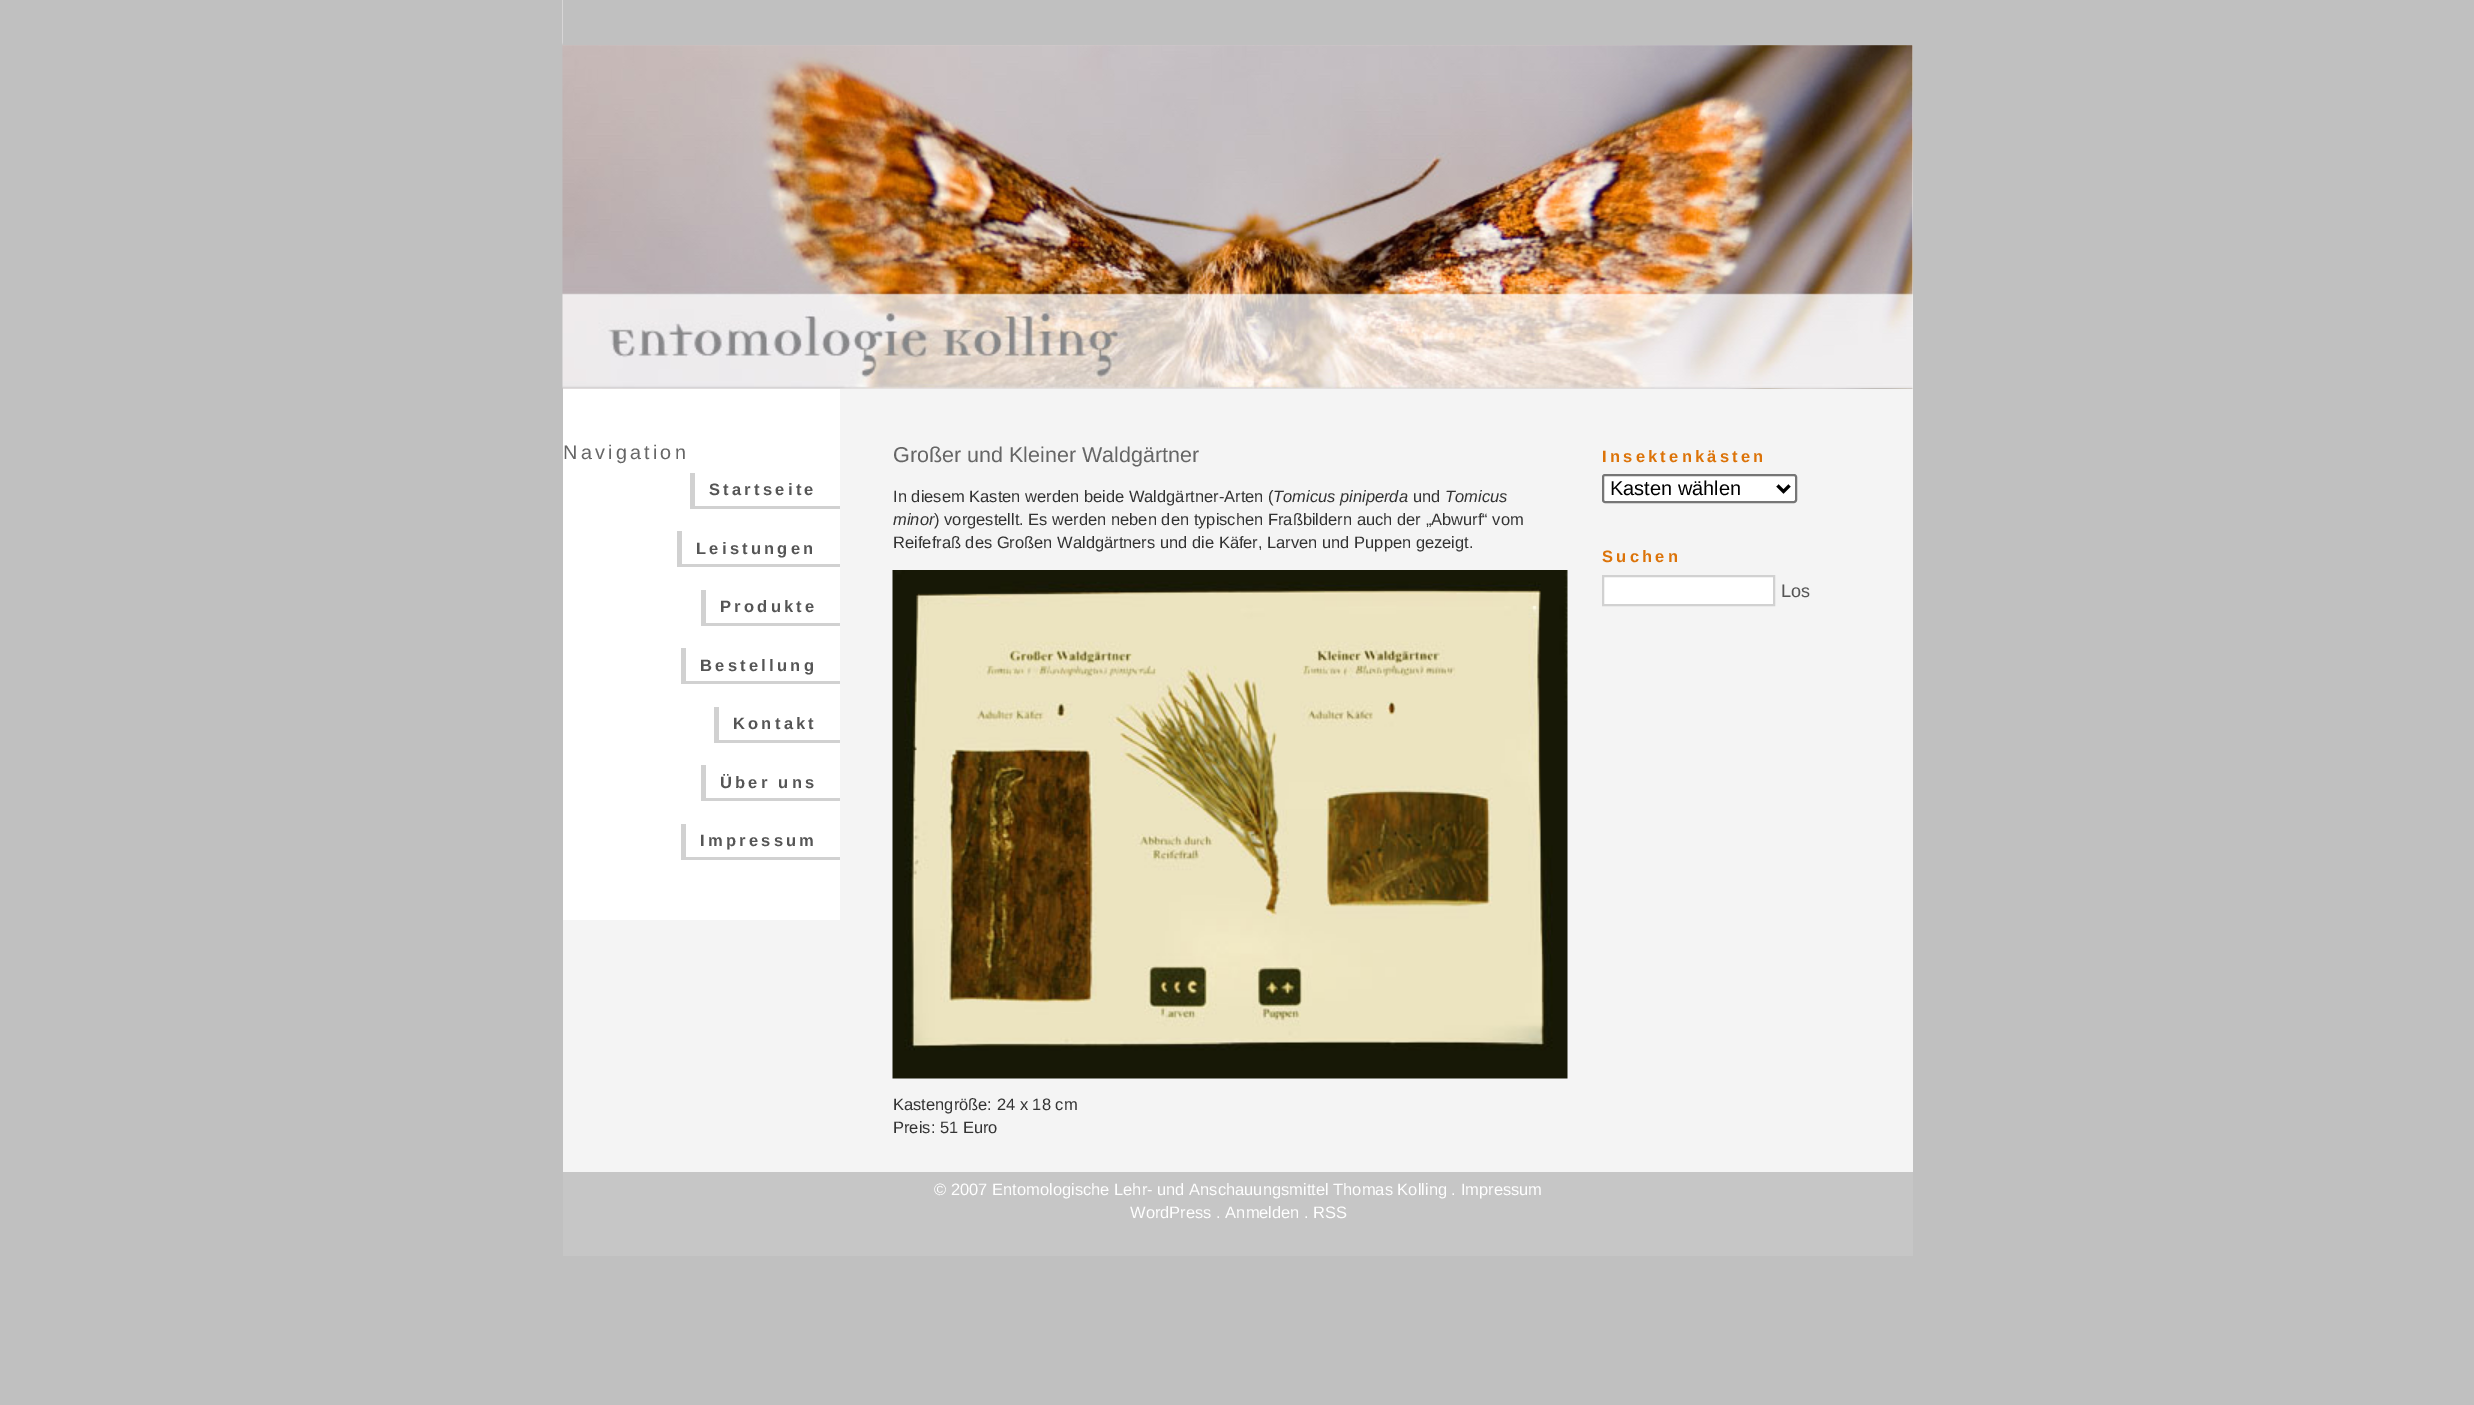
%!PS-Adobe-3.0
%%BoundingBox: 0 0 2474 1405
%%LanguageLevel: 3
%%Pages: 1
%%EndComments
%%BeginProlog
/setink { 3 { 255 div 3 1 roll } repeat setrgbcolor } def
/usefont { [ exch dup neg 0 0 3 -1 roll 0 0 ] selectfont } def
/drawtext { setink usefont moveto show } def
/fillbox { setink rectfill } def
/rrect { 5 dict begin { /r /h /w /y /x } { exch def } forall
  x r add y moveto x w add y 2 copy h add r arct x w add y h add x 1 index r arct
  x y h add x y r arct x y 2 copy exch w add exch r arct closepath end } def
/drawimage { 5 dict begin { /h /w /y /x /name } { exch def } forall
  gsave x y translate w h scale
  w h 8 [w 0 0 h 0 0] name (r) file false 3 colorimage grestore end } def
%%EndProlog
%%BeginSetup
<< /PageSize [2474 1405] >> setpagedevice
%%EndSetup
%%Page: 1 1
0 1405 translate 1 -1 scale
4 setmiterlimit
0 0 2474 1405 192 192 192 fillbox
563 45 1350 1127 244 244 244 fillbox
(assets/img1.rgb) 562 0 1351 389 drawimage
563 0 1350 45 192 192 192 fillbox
563 389 277 531 255 255 255 fillbox
/LiberationSans-Regular 19.75 usefont
102 102 102 setink
563 459 moveto 3.25 0 (Navigation) ashow
/LiberationSans-Bold 16.5 usefont
85 85 85 setink
709 495 moveto 3.25 0 (Startseite) ashow
690 506 150 3 209 209 209 fillbox
690 473 5 36 209 209 209 fillbox
85 85 85 setink
696 554 moveto 3.25 0 (Leistungen) ashow
677 564 163 3 209 209 209 fillbox
677 531 5 36 209 209 209 fillbox
85 85 85 setink
720 612 moveto 3.25 0 (Produkte) ashow
701 623 139 3 209 209 209 fillbox
701 590 5 36 209 209 209 fillbox
85 85 85 setink
700 671 moveto 3.25 0 (Bestellung) ashow
681 681 159 3 209 209 209 fillbox
681 648 5 36 209 209 209 fillbox
85 85 85 setink
733 729 moveto 3.25 0 (Kontakt) ashow
714 740 126 3 209 209 209 fillbox
714 707 5 36 209 209 209 fillbox
85 85 85 setink
720 788 moveto 3.25 0 (Über uns) ashow
701 798 139 3 209 209 209 fillbox
701 765 5 36 209 209 209 fillbox
85 85 85 setink
700 846 moveto 3.25 0 (Impressum) ashow
681 857 159 3 209 209 209 fillbox
681 824 5 36 209 209 209 fillbox
(Großer und Kleiner Waldgärtner) 893 462 /LiberationSans-Regular 21.5 102 102 102 drawtext
(In diesem Kasten werden beide Waldgärtner-Arten \() 893 502 /LiberationSans-Regular 16.5 51 51 51 drawtext
(Tomicus piniperda) 1273 502 /LiberationSans-Italic 16.5 51 51 51 drawtext
(und) 1413 502 /LiberationSans-Regular 16.5 51 51 51 drawtext
(Tomicus) 1445 502 /LiberationSans-Italic 16.5 51 51 51 drawtext
(minor) 893 525 /LiberationSans-Italic 16.5 51 51 51 drawtext
(\) vorgestellt. Es werden neben den typischen Fraßbildern auch der „Abwurf“ vom) 934 525 /LiberationSans-Regular 16.5 51 51 51 drawtext
(Reifefraß des Großen Waldgärtners und die Käfer, Larven und Puppen gezeigt.) 893 548 /LiberationSans-Regular 16.5 51 51 51 drawtext
(assets/img2.rgb) 892 570 676 509 drawimage
(Kastengröße: 24 x 18 cm) 893 1110 /LiberationSans-Regular 16.5 51 51 51 drawtext
(Preis: 51 Euro) 893 1133 /LiberationSans-Regular 16.5 51 51 51 drawtext
/LiberationSans-Bold 16.5 usefont
220 115 8 setink
1602 462 moveto 3.25 0 (Insektenkästen) ashow
255 255 255 setink
1603 475 193 27 2 rrect gsave fill grestore
118 118 118 setink
2 setlinewidth
stroke
0 0 0 setink
3 setlinewidth
1777.5 485.5 moveto 1783.5 491.5 lineto 1789.5 485.5 lineto stroke
(Kasten wählen) 1610 495 /LiberationSans-Regular 20 0 0 0 drawtext
/LiberationSans-Bold 16.5 usefont
220 115 8 setink
1602 562 moveto 3.25 0 (Suchen) ashow
255 255 255 setink
1603 576 moveto 1774 576 lineto 1774 605 lineto 1603 605 lineto closepath gsave fill grestore
209 209 209 setink
2 setlinewidth
stroke
(Los) 1781 597 /LiberationSans-Regular 18 85 85 85 drawtext
563 1172 1350 84 198 198 198 fillbox
(© 2007 Entomologische Lehr- und Anschauungsmittel Thomas Kolling . Impressum) 934 1195 /LiberationSans-Regular 16.5 255 255 255 drawtext
(WordPress . Anmelden . RSS) 1130 1218 /LiberationSans-Regular 16.5 255 255 255 drawtext
showpage
%%EOF
